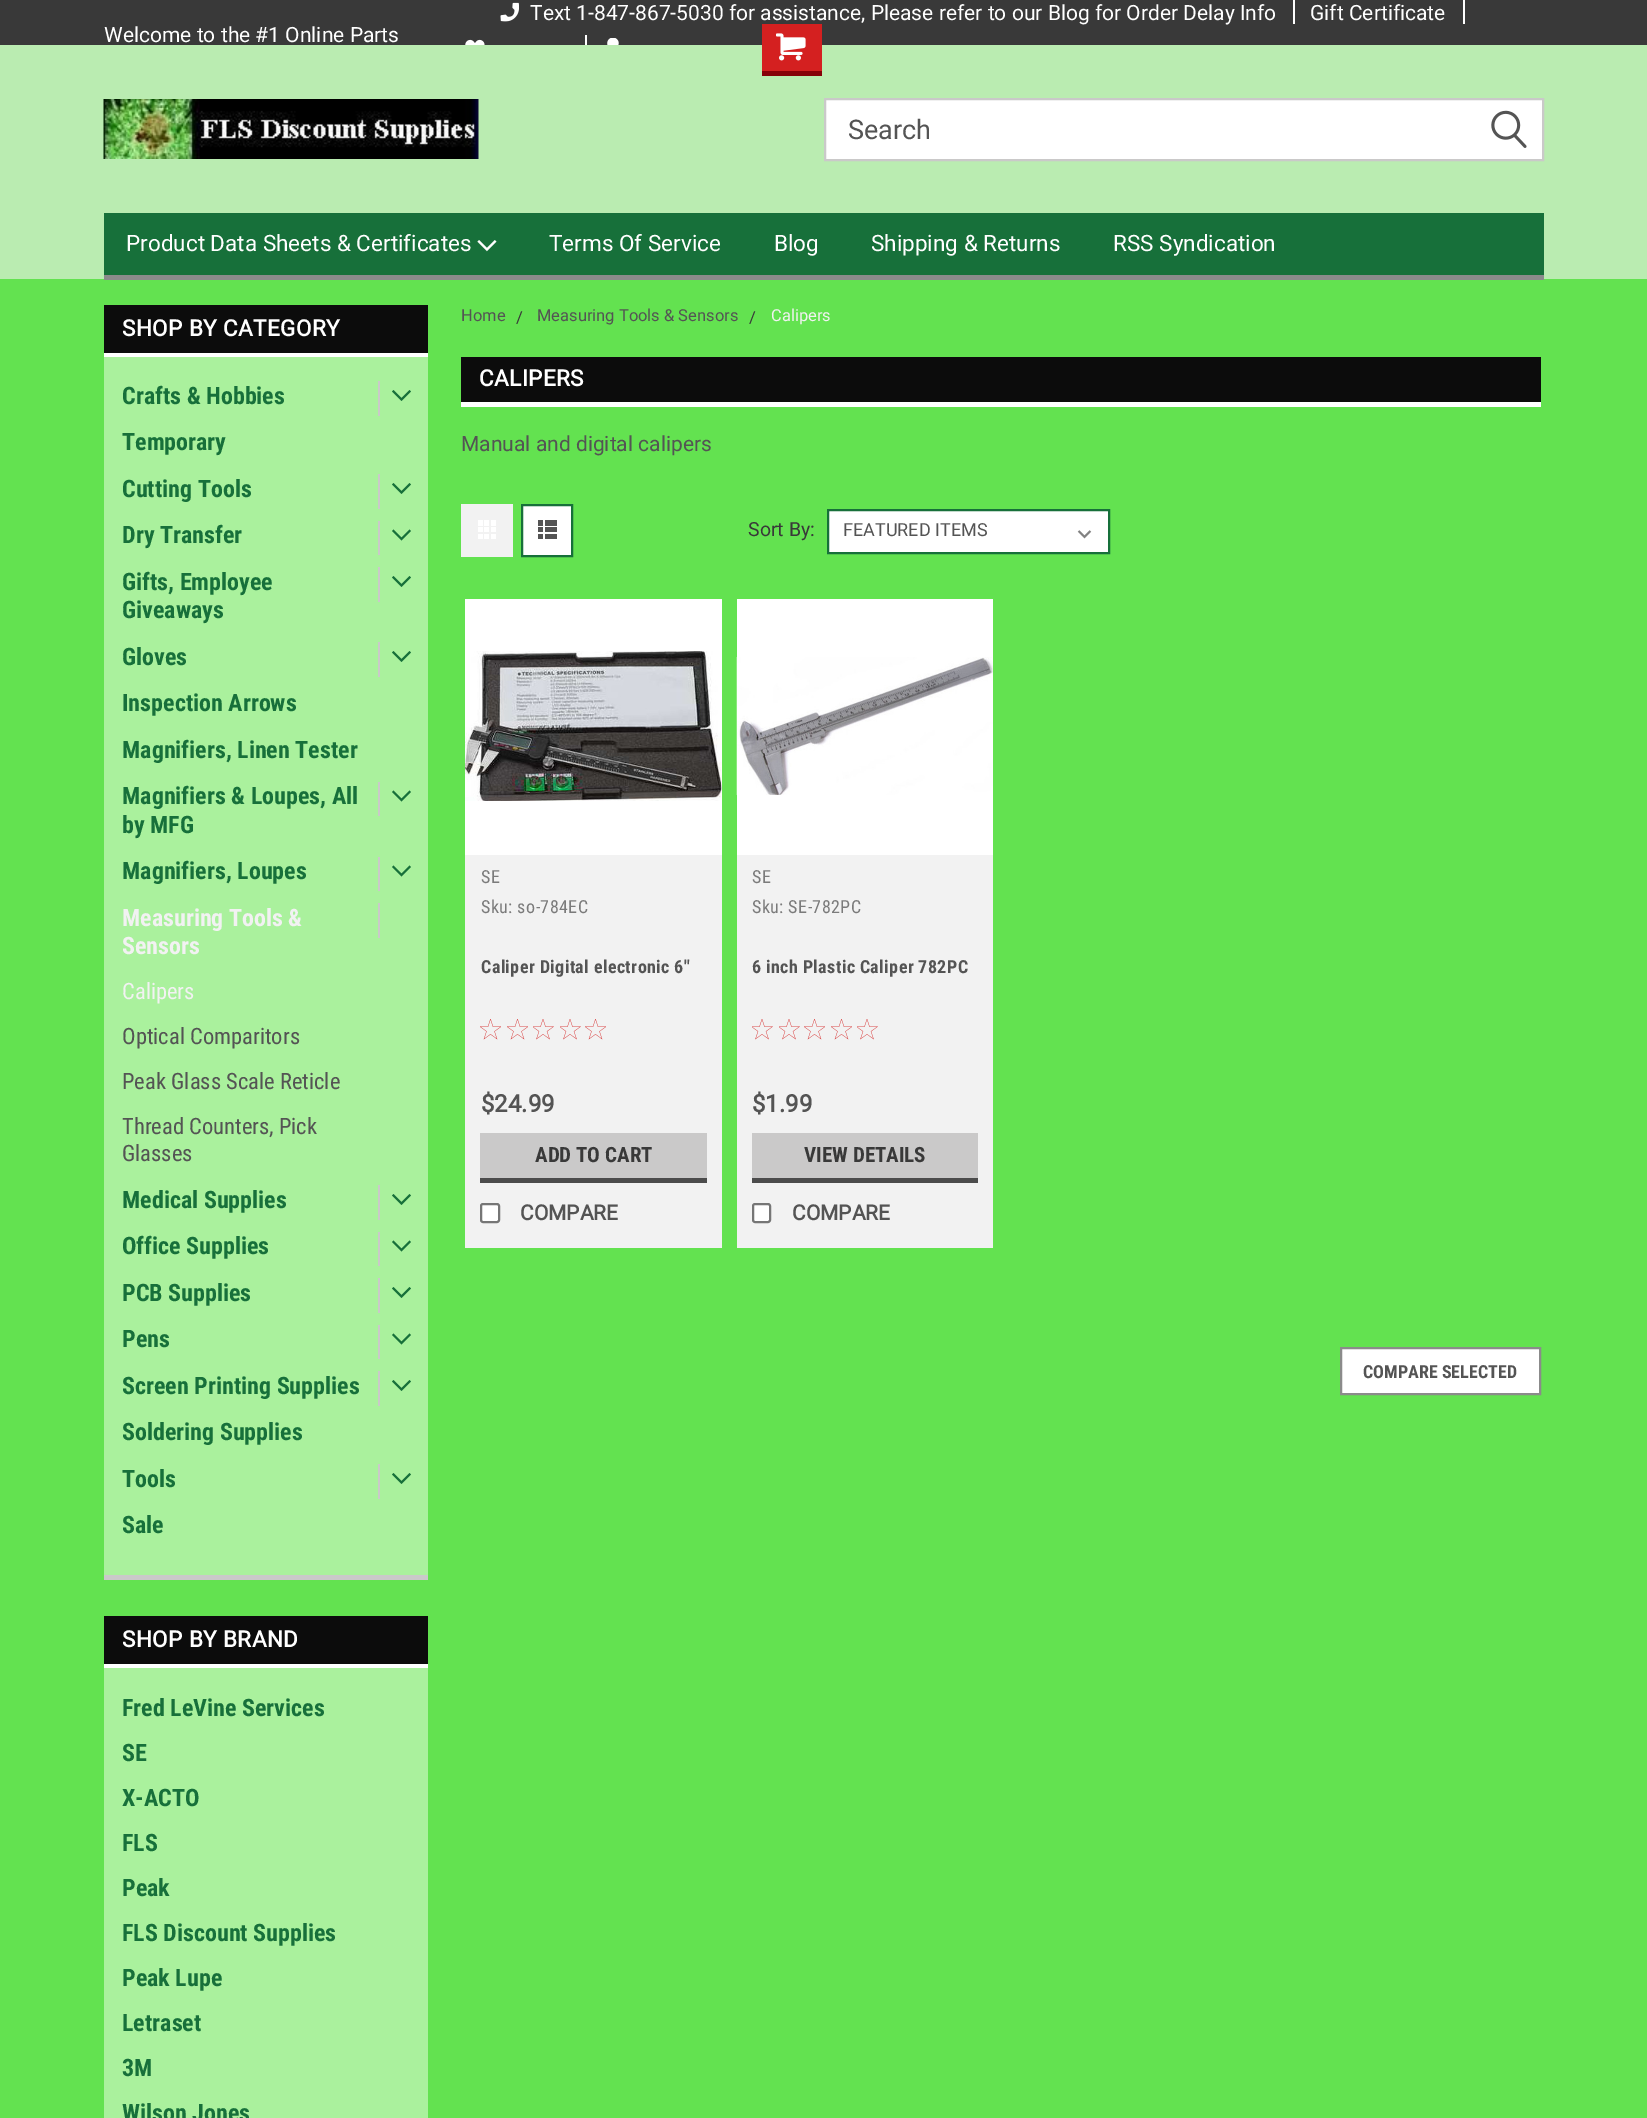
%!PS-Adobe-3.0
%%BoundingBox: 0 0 1647 2118
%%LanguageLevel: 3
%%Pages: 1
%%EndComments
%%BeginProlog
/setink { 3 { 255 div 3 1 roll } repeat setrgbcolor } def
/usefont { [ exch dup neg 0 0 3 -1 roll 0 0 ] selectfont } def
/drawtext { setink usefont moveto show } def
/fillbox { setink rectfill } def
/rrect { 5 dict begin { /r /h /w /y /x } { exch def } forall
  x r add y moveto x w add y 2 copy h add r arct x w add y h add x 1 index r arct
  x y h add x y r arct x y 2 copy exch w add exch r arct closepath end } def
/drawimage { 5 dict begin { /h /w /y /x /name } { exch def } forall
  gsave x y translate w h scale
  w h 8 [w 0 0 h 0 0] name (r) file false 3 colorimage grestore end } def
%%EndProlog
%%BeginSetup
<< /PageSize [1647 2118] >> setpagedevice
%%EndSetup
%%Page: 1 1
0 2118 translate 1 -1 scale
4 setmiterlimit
0 0 1647 2118 99 226 80 fillbox
0 45 1647 234 186 236 177 fillbox
0 0 1647 45 57 57 57 fillbox
1293 0 2 24 255 255 255 fillbox
(assets/img1.rgb) 500 2 19 20 drawimage
(Text 1-847-867-5030 for assistance, Please refer to our Blog for Order Delay Info) 530 20 /Roboto-Regular 21 255 255 255 drawtext
1463 0 2 24 255 255 255 fillbox
(Gift Certificate) 1310 20 /Roboto-Regular 21 255 255 255 drawtext
585 35 2 10 255 255 255 fillbox
(assets/img2.rgb) 465 39 20 6 drawimage
(assets/img3.rgb) 607 38 12 7 drawimage
762 24 60 47 212 32 32 fillbox
762 71 60 5 134 1 9 fillbox
(assets/img4.rgb) 776 33 30 28 drawimage
(Welcome to the #1 Online Parts) 104 42 /Roboto-Regular 21 255 255 255 drawtext
(assets/img5.rgb) 103 99 376 60 drawimage
825 99 moveto 1543 99 lineto 1543 160 lineto 825 160 lineto closepath gsave fill grestore
202 201 201 setink
2 setlinewidth
stroke
(Search) 848 139 /Roboto-Regular 27 84 84 84 drawtext
(assets/img6.rgb) 1491 110 36 38 drawimage
104 213 1440 62 23 112 58 fillbox
104 275 1440 5 139 139 139 fillbox
(Product Data Sheets & Certificates) 126 251 /Roboto-Regular 22.5 255 255 255 drawtext
(assets/img7.rgb) 477 240 20 12 drawimage
(Terms Of Service) 549 251 /Roboto-Regular 22.5 255 255 255 drawtext
(Blog) 774 251 /Roboto-Regular 22.5 255 255 255 drawtext
(Shipping & Returns) 871 251 /Roboto-Regular 22.5 255 255 255 drawtext
(RSS Syndication) 1113 251 /Roboto-Regular 22.5 255 255 255 drawtext
104 1575 330 5 202 201 201 fillbox
104 305 324 48 12 12 12 fillbox
104 353 330 4 255 255 255 fillbox
/Roboto-Bold 22.5 usefont
122 336 moveto 0.4 0 (SHOP BY CATEGORY) ashow
104 357 324 1218 170 241 157 fillbox
(Crafts & Hobbies) 122 404 /RobotoCondensed-Bold 24 23 112 58 drawtext
378 381 2 35 202 201 201 fillbox
23 112 58 setink
411 391.5 moveto 401.5 401 lineto 392 391.5 lineto 393.5 390 lineto 401.5 398 lineto 409.5 390 lineto closepath fill
(Temporary) 122 450 /RobotoCondensed-Bold 24 23 112 58 drawtext
(Cutting Tools) 122 497 /RobotoCondensed-Bold 24 23 112 58 drawtext
378 474 2 35 202 201 201 fillbox
23 112 58 setink
411 484.5 moveto 401.5 494 lineto 392 484.5 lineto 393.5 483 lineto 401.5 491 lineto 409.5 483 lineto closepath fill
(Dry Transfer) 122 543 /RobotoCondensed-Bold 24 23 112 58 drawtext
378 521 2 34 202 201 201 fillbox
23 112 58 setink
411 531 moveto 401.5 540.5 lineto 392 531 lineto 393.5 529.5 lineto 401.5 537.5 lineto 409.5 529.5 lineto closepath fill
(Gifts, Employee) 122 590 /RobotoCondensed-Bold 24 23 112 58 drawtext
(Giveaways) 122 618 /RobotoCondensed-Bold 24 23 112 58 drawtext
378 567 2 35 202 201 201 fillbox
23 112 58 setink
411 577.5 moveto 401.5 587 lineto 392 577.5 lineto 393.5 576 lineto 401.5 584 lineto 409.5 576 lineto closepath fill
(Gloves) 122 665 /RobotoCondensed-Bold 24 23 112 58 drawtext
378 642 2 35 202 201 201 fillbox
23 112 58 setink
411 652.5 moveto 401.5 662 lineto 392 652.5 lineto 393.5 651 lineto 401.5 659 lineto 409.5 651 lineto closepath fill
(Inspection Arrows) 122 711 /RobotoCondensed-Bold 24 23 112 58 drawtext
(Magnifiers, Linen Tester) 122 758 /RobotoCondensed-Bold 24 23 112 58 drawtext
(Magnifiers & Loupes, All) 122 804 /RobotoCondensed-Bold 24 23 112 58 drawtext
(by MFG) 122 833 /RobotoCondensed-Bold 24 23 112 58 drawtext
378 782 2 34 202 201 201 fillbox
23 112 58 setink
411 792 moveto 401.5 801.5 lineto 392 792 lineto 393.5 790.5 lineto 401.5 798.5 lineto 409.5 790.5 lineto closepath fill
(Magnifiers, Loupes) 122 879 /RobotoCondensed-Bold 24 23 112 58 drawtext
378 857 2 34 202 201 201 fillbox
23 112 58 setink
411 867 moveto 401.5 876.5 lineto 392 867 lineto 393.5 865.5 lineto 401.5 873.5 lineto 409.5 865.5 lineto closepath fill
(Measuring Tools &) 122 926 /RobotoCondensed-Bold 24 242 242 242 drawtext
(Sensors) 122 954 /RobotoCondensed-Bold 24 242 242 242 drawtext
378 903 2 35 202 201 201 fillbox
(Calipers) 122 999 /RobotoCondensed-Regular 22.5 242 242 242 drawtext
(Optical Comparitors) 122 1044 /RobotoCondensed-Regular 22.5 84 84 84 drawtext
(Peak Glass Scale Reticle) 122 1089 /RobotoCondensed-Regular 22.5 84 84 84 drawtext
(Thread Counters, Pick) 122 1134 /RobotoCondensed-Regular 22.5 84 84 84 drawtext
(Glasses) 122 1161 /RobotoCondensed-Regular 22.5 84 84 84 drawtext
(Medical Supplies) 122 1208 /RobotoCondensed-Bold 24 23 112 58 drawtext
378 1185 2 35 202 201 201 fillbox
23 112 58 setink
411 1195.5 moveto 401.5 1205 lineto 392 1195.5 lineto 393.5 1194 lineto 401.5 1202 lineto 409.5 1194 lineto closepath fill
(Office Supplies) 122 1254 /RobotoCondensed-Bold 24 23 112 58 drawtext
378 1232 2 34 202 201 201 fillbox
23 112 58 setink
411 1242 moveto 401.5 1251.5 lineto 392 1242 lineto 393.5 1240.5 lineto 401.5 1248.5 lineto 409.5 1240.5 lineto closepath fill
(PCB Supplies) 122 1301 /RobotoCondensed-Bold 24 23 112 58 drawtext
378 1278 2 35 202 201 201 fillbox
23 112 58 setink
411 1288.5 moveto 401.5 1298 lineto 392 1288.5 lineto 393.5 1287 lineto 401.5 1295 lineto 409.5 1287 lineto closepath fill
(Pens) 122 1347 /RobotoCondensed-Bold 24 23 112 58 drawtext
378 1325 2 34 202 201 201 fillbox
23 112 58 setink
411 1335 moveto 401.5 1344.5 lineto 392 1335 lineto 393.5 1333.5 lineto 401.5 1341.5 lineto 409.5 1333.5 lineto closepath fill
(Screen Printing Supplies) 122 1394 /RobotoCondensed-Bold 24 23 112 58 drawtext
378 1371 2 35 202 201 201 fillbox
23 112 58 setink
411 1381.5 moveto 401.5 1391 lineto 392 1381.5 lineto 393.5 1380 lineto 401.5 1388 lineto 409.5 1380 lineto closepath fill
(Soldering Supplies) 122 1440 /RobotoCondensed-Bold 24 23 112 58 drawtext
(Tools) 122 1487 /RobotoCondensed-Bold 24 23 112 58 drawtext
378 1464 2 35 202 201 201 fillbox
23 112 58 setink
411 1474.5 moveto 401.5 1484 lineto 392 1474.5 lineto 393.5 1473 lineto 401.5 1481 lineto 409.5 1473 lineto closepath fill
(Sale) 122 1533 /RobotoCondensed-Bold 24 23 112 58 drawtext
104 1616 324 48 12 12 12 fillbox
104 1664 330 4 255 255 255 fillbox
/Roboto-Bold 22.5 usefont
122 1647 moveto 0.4 0 (SHOP BY BRAND) ashow
104 1668 324 450 170 241 157 fillbox
(Fred LeVine Services) 122 1716 /RobotoCondensed-Bold 24 23 112 58 drawtext
(SE) 122 1761 /RobotoCondensed-Bold 24 23 112 58 drawtext
(X-ACTO) 122 1806 /RobotoCondensed-Bold 24 23 112 58 drawtext
(FLS) 122 1851 /RobotoCondensed-Bold 24 23 112 58 drawtext
(Peak) 122 1896 /RobotoCondensed-Bold 24 23 112 58 drawtext
(FLS Discount Supplies) 122 1941 /RobotoCondensed-Bold 24 23 112 58 drawtext
(Peak Lupe) 122 1986 /RobotoCondensed-Bold 24 23 112 58 drawtext
(Letraset) 122 2031 /RobotoCondensed-Bold 24 23 112 58 drawtext
(3M) 122 2076 /RobotoCondensed-Bold 24 23 112 58 drawtext
(Wilson Jones) 122 2121 /RobotoCondensed-Bold 24 23 112 58 drawtext
428 353 6 1315 99 226 80 fillbox
(Home) 461 321 /Roboto-Regular 16.5 84 84 84 drawtext
(/) 516 323 /Roboto-Regular 16.5 57 57 57 drawtext
(Measuring Tools & Sensors) 537 321 /Roboto-Regular 16.5 84 84 84 drawtext
(/) 749 323 /Roboto-Regular 16.5 57 57 57 drawtext
(Calipers) 771 321 /Roboto-Regular 16.5 242 242 242 drawtext
461 357 1080 45 12 12 12 fillbox
461 402 1080 5 255 255 255 fillbox
/Roboto-Bold 22.5 usefont
479 386 moveto 0.4 0 (CALIPERS) ashow
(Manual and digital calipers) 461 451 /Roboto-Regular 21 84 84 84 drawtext
461 504 52 53 242 242 242 fillbox
(assets/img8.rgb) 478 520 18 19 drawimage
255 255 255 setink
522 505 moveto 572 505 lineto 572 556 lineto 522 556 lineto closepath gsave fill grestore
23 112 58 setink
stroke
(assets/img9.rgb) 538 520 19 19 drawimage
(Sort By:) 748 536 /Roboto-Regular 19.5 57 57 57 drawtext
829 511 279 41 255 255 255 fillbox
(assets/img10.rgb) 1077 530 15 9 drawimage
23 112 58 setink
828 510 281 43 rectstroke
(FEATURED ITEMS) 843 536 /Roboto-Regular 18 84 84 84 drawtext
465 855 257 393 242 242 242 fillbox
465 599 257 256 255 255 255 fillbox
(assets/img11.rgb) 465 651 257 150 drawimage
/RobotoCondensed-Regular 18 usefont
123 123 123 setink
481 883 moveto 0.4 0 (SE) ashow
481 913 moveto 0.4 0 (Sku: so-784EC) ashow
/RobotoCondensed-Bold 18 usefont
84 84 84 setink
481 973 moveto 0.4 0 (Caliper Digital electronic 6") ashow
(assets/img12.rgb) 480 1019 21 21 drawimage
(assets/img12.rgb) 507 1019 21 21 drawimage
(assets/img13.rgb) 533 1019 21 21 drawimage
(assets/img13.rgb) 560 1019 21 21 drawimage
(assets/img12.rgb) 585 1019 21 21 drawimage
($24.99) 481 1112 /Roboto-Bold 24 84 84 84 drawtext
480 1133 227 45 202 201 201 fillbox
480 1178 227 5 76 76 76 fillbox
(ADD TO CART) 535 1162 /RobotoCondensed-Bold 21 57 57 57 drawtext
255 255 255 setink
481 1204 18 18 2 rrect gsave fill grestore
118 118 118 setink
stroke
(COMPARE) 520 1220 /Roboto-Bold 21 84 84 84 drawtext
737 855 256 393 242 242 242 fillbox
737 599 256 256 255 255 255 fillbox
(assets/img14.rgb) 736 657 257 138 drawimage
/RobotoCondensed-Regular 18 usefont
123 123 123 setink
752 883 moveto 0.4 0 (SE) ashow
752 913 moveto 0.4 0 (Sku: SE-782PC) ashow
/RobotoCondensed-Bold 18 usefont
84 84 84 setink
752 973 moveto 0.4 0 (6 inch Plastic Caliper 782PC) ashow
(assets/img13.rgb) 752 1019 21 21 drawimage
(assets/img13.rgb) 779 1019 21 21 drawimage
(assets/img12.rgb) 804 1019 21 21 drawimage
(assets/img12.rgb) 831 1019 21 21 drawimage
(assets/img13.rgb) 857 1019 21 21 drawimage
($1.99) 752 1112 /Roboto-Bold 24 84 84 84 drawtext
752 1133 226 45 202 201 201 fillbox
752 1178 226 5 76 76 76 fillbox
(VIEW DETAILS) 804 1162 /RobotoCondensed-Bold 21 57 57 57 drawtext
255 255 255 setink
753 1204 17 18 2 rrect gsave fill grestore
118 118 118 setink
stroke
(COMPARE) 792 1220 /Roboto-Bold 21 84 84 84 drawtext
255 255 255 setink
1341 1348 moveto 1540 1348 lineto 1540 1394 lineto 1341 1394 lineto closepath gsave fill grestore
139 139 139 setink
stroke
(COMPARE SELECTED) 1363 1378 /RobotoCondensed-Bold 18 84 84 84 drawtext
showpage
%%EOF
